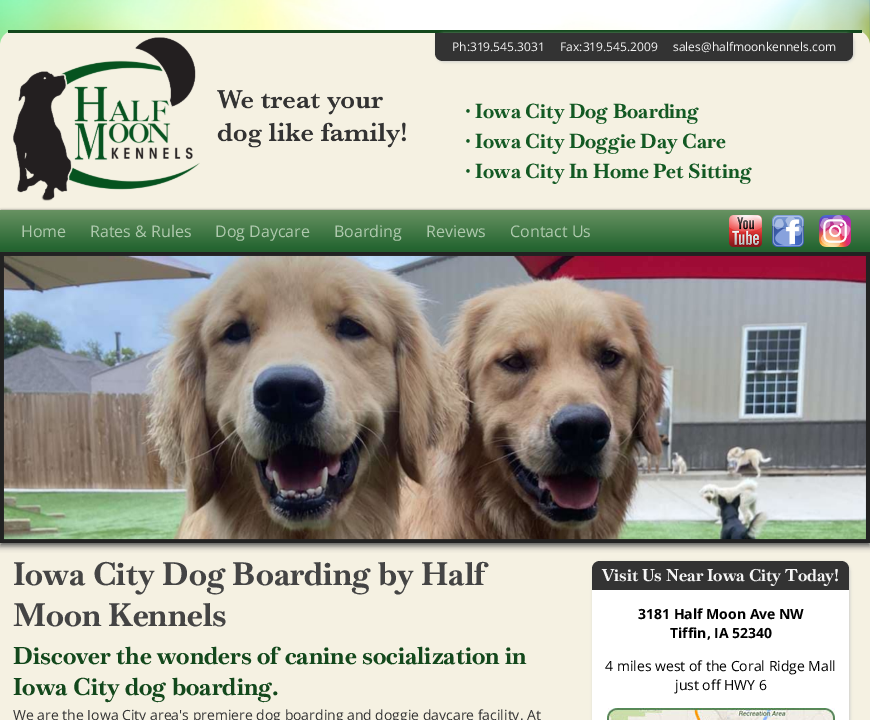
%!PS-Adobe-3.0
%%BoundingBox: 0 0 870 720
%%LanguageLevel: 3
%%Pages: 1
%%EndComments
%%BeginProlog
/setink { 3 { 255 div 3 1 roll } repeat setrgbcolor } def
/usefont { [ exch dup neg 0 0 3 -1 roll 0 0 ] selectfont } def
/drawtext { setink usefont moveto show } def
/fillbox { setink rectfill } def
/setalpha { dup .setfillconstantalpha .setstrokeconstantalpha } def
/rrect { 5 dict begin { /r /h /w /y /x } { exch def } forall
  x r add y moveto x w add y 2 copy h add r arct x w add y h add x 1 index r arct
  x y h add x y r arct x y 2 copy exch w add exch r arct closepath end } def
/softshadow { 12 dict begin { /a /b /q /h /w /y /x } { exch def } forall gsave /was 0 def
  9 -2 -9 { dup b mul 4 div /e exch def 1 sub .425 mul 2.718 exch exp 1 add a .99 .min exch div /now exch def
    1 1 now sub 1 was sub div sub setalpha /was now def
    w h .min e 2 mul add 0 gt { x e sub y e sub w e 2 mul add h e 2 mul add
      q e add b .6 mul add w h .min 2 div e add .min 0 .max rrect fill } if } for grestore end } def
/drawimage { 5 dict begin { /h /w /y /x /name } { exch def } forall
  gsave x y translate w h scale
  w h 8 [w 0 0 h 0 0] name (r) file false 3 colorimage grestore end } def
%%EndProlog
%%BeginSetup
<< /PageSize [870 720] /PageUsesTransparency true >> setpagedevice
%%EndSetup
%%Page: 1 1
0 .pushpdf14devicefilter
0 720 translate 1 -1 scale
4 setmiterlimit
0 0 870 720 255 255 255 fillbox
(assets/img1.rgb) 0 0 870 46 drawimage
245 241 226 setink
16 30 moveto 854 30 lineto 863 30 870 37 870 46 curveto 870 210 lineto 0 210 lineto 0 46 lineto 0 37 7 30 16 30 curveto closepath fill
8 30 854 3 19 72 28 fillbox
(assets/img2.rgb) 13 37 393 164 drawimage
204 204 204 setink
436 34 418 28 8 1.5 1 softshadow
51 51 51 setink
435 33 moveto 853 33 lineto 853 53 lineto 853 57.5 849.5 61 845 61 curveto 443 61 lineto 438.5 61 435 57.5 435 53 curveto closepath fill
(Ph:319.545.3031     Fax:319.545.2009) 452 51 /OpenSans-Regular 12 245 245 245 drawtext
(sales@halfmoonkennels.com) 673 51 /OpenSans-Regular 12 245 245 245 drawtext
(• Iowa City Dog Boarding) 465 118 /Baskervville-Bold 20 19 89 35 drawtext
(• Iowa City Doggie Day Care) 465 148 /Baskervville-Bold 20 19 89 35 drawtext
(• Iowa City In Home Pet Sitting) 465 178 /Baskervville-Bold 20 19 89 35 drawtext
0 0 0 setink
1 211 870 42 0 1.5 1 softshadow
gsave 0 210 moveto 870 210 lineto 870 252 lineto 0 252 lineto closepath clip newpath
<< /ShadingType 2 /ColorSpace /DeviceRGB /Coords [435 210 435 252] /Extend [true true] /Function << /FunctionType 2 /Domain [0 1] /C0 [0.408 0.573 0.384] /C1 [0.118 0.38 0.173] /N 1 >> >> shfill grestore
(Home) 21 237 /OpenSans-Regular 16 175 201 174 drawtext
(Rates & Rules) 90 237 /OpenSans-Regular 16 175 201 174 drawtext
(Dog Daycare) 215 237 /OpenSans-Regular 16 175 201 174 drawtext
(Boarding) 334 237 /OpenSans-Regular 16 175 201 174 drawtext
(Reviews) 426 237 /OpenSans-Regular 16 175 201 174 drawtext
(Contact Us) 510 237 /OpenSans-Regular 16 175 201 174 drawtext
(assets/img3.rgb) 729 215 33 32 drawimage
(assets/img4.rgb) 772 215 32 32 drawimage
(assets/img5.rgb) 819 215 32 32 drawimage
0 543 870 177 245 241 226 fillbox
85 85 85 setink
0 255 870 291 0 3 1 softshadow
0 252 870 291 34 34 34 fillbox
(assets/img6.rgb) 3 255 863 285 drawimage
(Iowa City Dog Boarding by Half) 13 585 /Baskervville-Bold 32 68 68 68 drawtext
(Moon Kennels) 13 626 /Baskervville-Bold 32 68 68 68 drawtext
(Discover the wonders of canine socialization in) 13 664 /Baskervville-Bold 24 19 72 28 drawtext
(Iowa City dog boarding.) 13 695 /Baskervville-Bold 24 19 72 28 drawtext
(We are the Iowa City area's premiere dog boarding and doggie daycare facility. At) 13 720 /OpenSans-Regular 14 51 51 51 drawtext
204 204 204 setink
593 562 257 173 10 1.5 1 softshadow
255 255 255 setink
592 561 257 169 10 rrect fill
51 51 51 setink
600 561 moveto 841 561 lineto 845.5 561 849 564.5 849 569 curveto 849 590 lineto 592 590 lineto 592 569 lineto 592 564.5 595.5 561 600 561 curveto closepath fill
(Visit Us Near Iowa City Today!) 602 581 /Baskervville-Bold 16.75 245 245 245 drawtext
(3181 Half Moon Ave NW) 638 619 /OpenSans-Bold 14 0 0 0 drawtext
(Tiffin, IA 52340) 670 638 /OpenSans-Bold 14 0 0 0 drawtext
(4 miles west of the Coral Ridge Mall) 605 671 /OpenSans-Regular 14 0 0 0 drawtext
(just off HWY 6) 675 690 /OpenSans-Regular 14 0 0 0 drawtext
(assets/img7.rgb) 607 708 228 12 drawimage
.poppdf14devicefilter showpage
%%EOF
